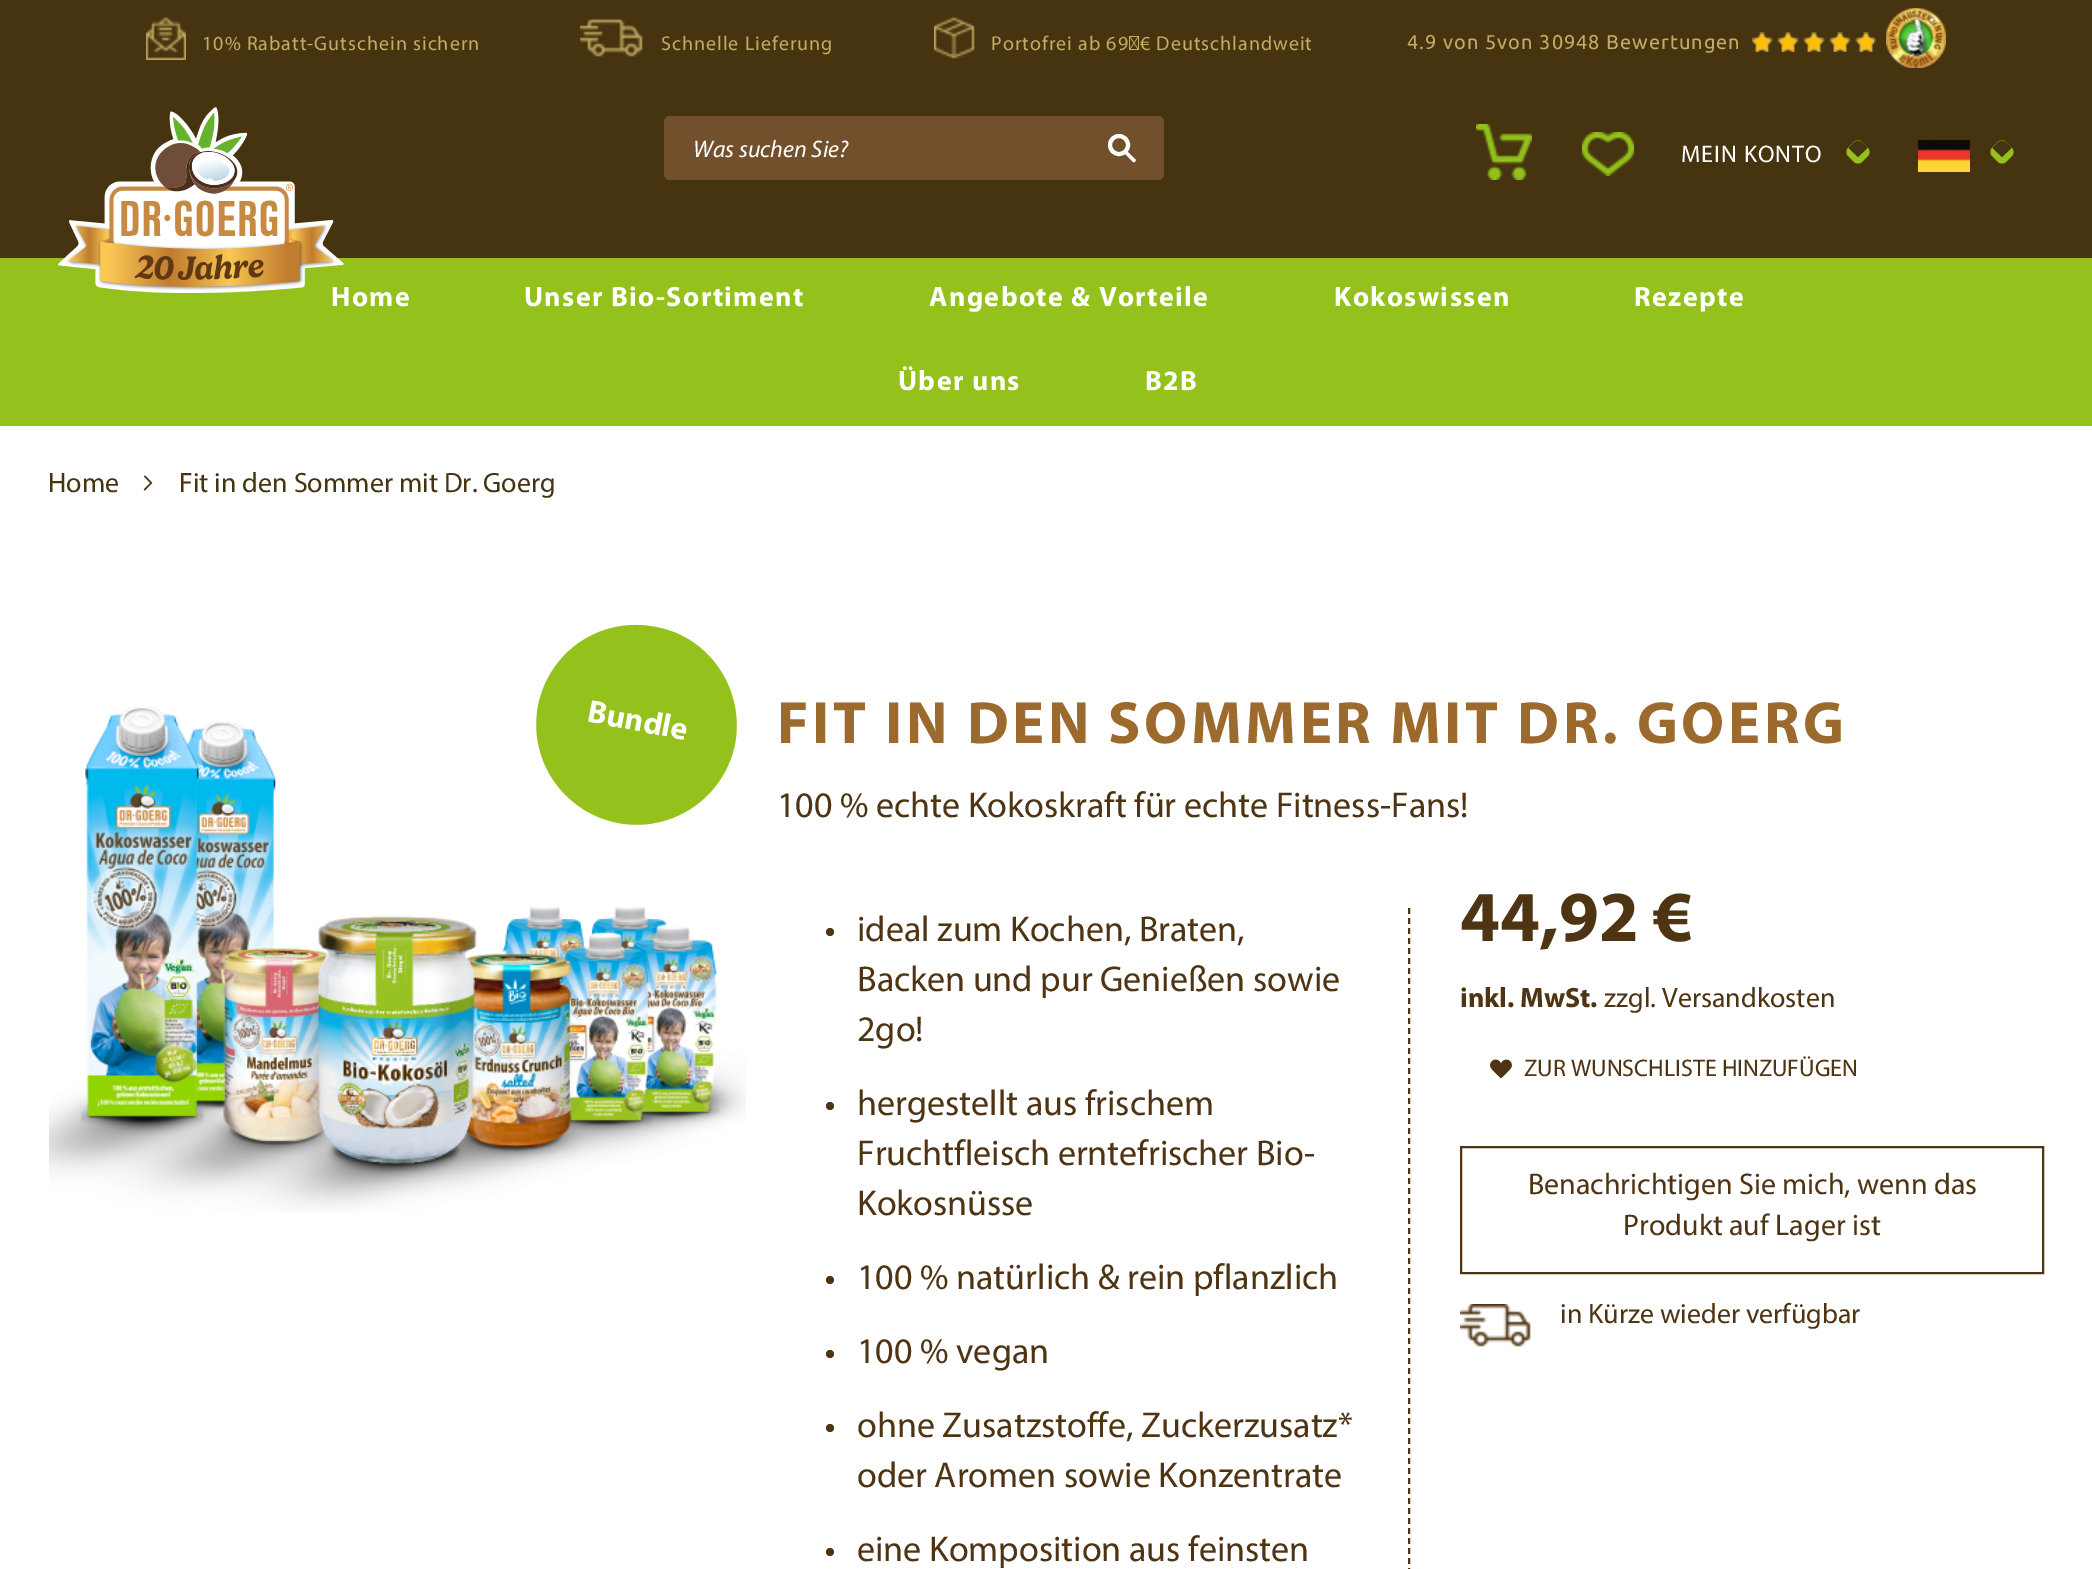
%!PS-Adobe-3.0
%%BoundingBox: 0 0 2092 1569
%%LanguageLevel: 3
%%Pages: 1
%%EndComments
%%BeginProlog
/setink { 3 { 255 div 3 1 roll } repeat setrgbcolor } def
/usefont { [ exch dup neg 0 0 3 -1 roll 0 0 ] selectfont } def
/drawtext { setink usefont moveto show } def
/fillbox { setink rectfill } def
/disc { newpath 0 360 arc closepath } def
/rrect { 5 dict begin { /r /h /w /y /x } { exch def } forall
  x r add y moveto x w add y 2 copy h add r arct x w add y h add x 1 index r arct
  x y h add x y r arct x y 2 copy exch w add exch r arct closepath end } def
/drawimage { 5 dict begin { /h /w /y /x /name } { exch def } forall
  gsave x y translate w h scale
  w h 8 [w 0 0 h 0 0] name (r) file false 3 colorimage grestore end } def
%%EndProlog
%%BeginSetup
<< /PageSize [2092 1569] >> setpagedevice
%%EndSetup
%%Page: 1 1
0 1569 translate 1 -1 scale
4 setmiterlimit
0 0 2092 1569 255 255 255 fillbox
0 0 2092 258 70 52 17 fillbox
(assets/img1.rgb) 146 17 40 43 drawimage
/Myriad-Regular 20 usefont
194 171 98 setink
202 50 moveto 1 0 (10% Rabatt-Gutschein sichern) ashow
(assets/img2.rgb) 580 18 63 39 drawimage
661 50 moveto 1 0 (Schnelle Lieferung) ashow
(assets/img3.rgb) 934 17 41 42 drawimage
991 50 moveto 1 0 (Portofrei ab 69 € Deutschlandweit) ashow
/Ubuntu-Regular 20 usefont
1407 49 moveto 1 0 (4.9 von 5von 30948 Bewertungen) ashow
(assets/img4.rgb) 1752 32 124 20 drawimage
(assets/img5.rgb) 1752 32 122 20 drawimage
(assets/img6.rgb) 1886 8 60 60 drawimage
0 258 2092 168 148 193 27 fillbox
/Myriad-Bold 28 usefont
255 255 255 setink
331 306 moveto 1.4 0 (Home) ashow
(assets/img7.rgb) 58 107 286 186 drawimage
114 80 43 setink
664 116 500 64 6 rrect fill
(Was suchen Sie?) 693 157 /Myriad-Italic 24 255 255 255 drawtext
4 setlinewidth
1119 145 9 disc stroke
1124 150.5 moveto 1124.5 149.5 1126 149.5 1126.5 150.5 curveto 1135 159 lineto 1136 159.5 1136 161 1135 161.5 curveto 1134.5 162.5 1133 162.5 1132.5 161.5 curveto 1124 153 lineto 1123 152.5 1123 151 1124 150.5 curveto closepath fill
(assets/img8.rgb) 1476 124 56 56 drawimage
(assets/img9.rgb) 1582 132 52 44 drawimage
/Myriad-Regular 24 usefont
1681 162 moveto 1 0 (MEIN KONTO) ashow
148 193 27 setink
1862 142 moveto 1868 148 lineto 1870 150 1870 154 1868 156 curveto 1862 162 lineto 1860 164 1856 164 1854 162 curveto 1848 156 lineto 1846 154 1846 150 1848 148 curveto 1854 142 lineto 1856 140 1860 140 1862 142 curveto closepath 1862 142 moveto 1868 148 lineto 1858 157.5 lineto 1848 148 lineto 1851.5 144.5 1857 137 1862 142 curveto closepath eofill
(assets/img10.rgb) 1918 140 52 32 drawimage
2006 142 moveto 2012 148 lineto 2014 150 2014 154 2012 156 curveto 2006 162 lineto 2004 164 2000 164 1998 162 curveto 1992 156 lineto 1990 154 1990 150 1992 148 curveto 1998 142 lineto 2000 140 2004 140 2006 142 curveto closepath 2006 142 moveto 2012 148 lineto 2002 157.5 lineto 1992 148 lineto 1995.5 144.5 2001 137 2006 142 curveto closepath eofill
/Myriad-Bold 28 usefont
255 255 255 setink
524 306 moveto 1.4 0 (Unser Bio-Sortiment) ashow
929 306 moveto 1.4 0 (Angebote & Vorteile) ashow
1334 306 moveto 1.4 0 (Kokoswissen) ashow
1634 306 moveto 1.4 0 (Rezepte) ashow
898 390 moveto 1.4 0 (Über uns) ashow
1145 390 moveto 1.4 0 (B2B) ashow
(Home) 48 492 /Myriad-Regular 28 70 52 17 drawtext
(assets/img11.rgb) 143 475 10 16 drawimage
(Fit in den Sommer mit Dr. Goerg) 179 492 /Myriad-Regular 28 70 52 17 drawtext
(assets/img12.rgb) 49 707 697 506 drawimage
148 193 27 setink
656 627 moveto 710 637 745 690 735 744 curveto 724 798 672 833 618 823 curveto 563 812 528 760 538 706 curveto 549 651 601 616 656 627 curveto closepath fill
/Myriad-Bold 32 usefont
255 255 255 setink
gsave 586 721 translate 11 rotate 0 0 moveto (Bundle) show grestore
/Myriad-Bold 60 usefont
156 106 45 setink
777 743 moveto 3.6 0 (FIT IN DEN SOMMER MIT DR. GOERG) ashow
(100 % echte Kokoskraft für echte Fitness-Fans!) 777 817 /Myriad-Regular 36 78 52 19 drawtext
2 setlinewidth
[6 4] 0 setdash
1409 908 moveto 1409 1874 lineto stroke
830 932 4 disc fill
(ideal zum Kochen, Braten,) 857 941 /Myriad-Regular 36 78 52 19 drawtext
(Backen und pur Genießen sowie) 857 991 /Myriad-Regular 36 78 52 19 drawtext
(2go!) 857 1041 /Myriad-Regular 36 78 52 19 drawtext
830 1106 4 disc fill
(hergestellt aus frischem) 857 1115 /Myriad-Regular 36 78 52 19 drawtext
(Fruchtfleisch erntefrischer Bio-) 857 1165 /Myriad-Regular 36 78 52 19 drawtext
(Kokosnüsse) 857 1215 /Myriad-Regular 36 78 52 19 drawtext
830 1280 4 disc fill
(100 % natürlich & rein pflanzlich) 857 1289 /Myriad-Regular 36 78 52 19 drawtext
830 1354 4 disc fill
(100 % vegan) 857 1363 /Myriad-Regular 36 78 52 19 drawtext
830 1428 4 disc fill
(ohne Zusatzstoffe, Zuckerzusatz*) 857 1437 /Myriad-Regular 36 78 52 19 drawtext
(oder Aromen sowie Konzentrate) 857 1487 /Myriad-Regular 36 78 52 19 drawtext
830 1552 4 disc fill
(eine Komposition aus feinsten) 857 1561 /Myriad-Regular 36 78 52 19 drawtext
(44,92 €) 1460 941 /Myriad-Bold 72 78 52 19 drawtext
(inkl. MwSt.) 1460 1007 /Myriad-Bold 28 78 52 19 drawtext
(zzgl. Versandkosten) 1604 1007 /Myriad-Regular 28 78 52 19 drawtext
(assets/img13.rgb) 1490 1059 22 20 drawimage
(ZUR WUNSCHLISTE HINZUFÜGEN) 1524 1076 /Myriad-Regular 24 78 52 19 drawtext
79 52 17 setink
[] 0 setdash
1461 1147 582 126 rectstroke
(Benachrichtigen Sie mich, wenn das) 1528 1194 /Myriad-Regular 30 78 52 19 drawtext
(Produkt auf Lager ist) 1623 1235 /Myriad-Regular 30 78 52 19 drawtext
(assets/img14.rgb) 1460 1304 71 43 drawimage
(in Kürze wieder verfügbar) 1560 1323 /Myriad-Regular 28 78 52 19 drawtext
showpage
%%EOF
